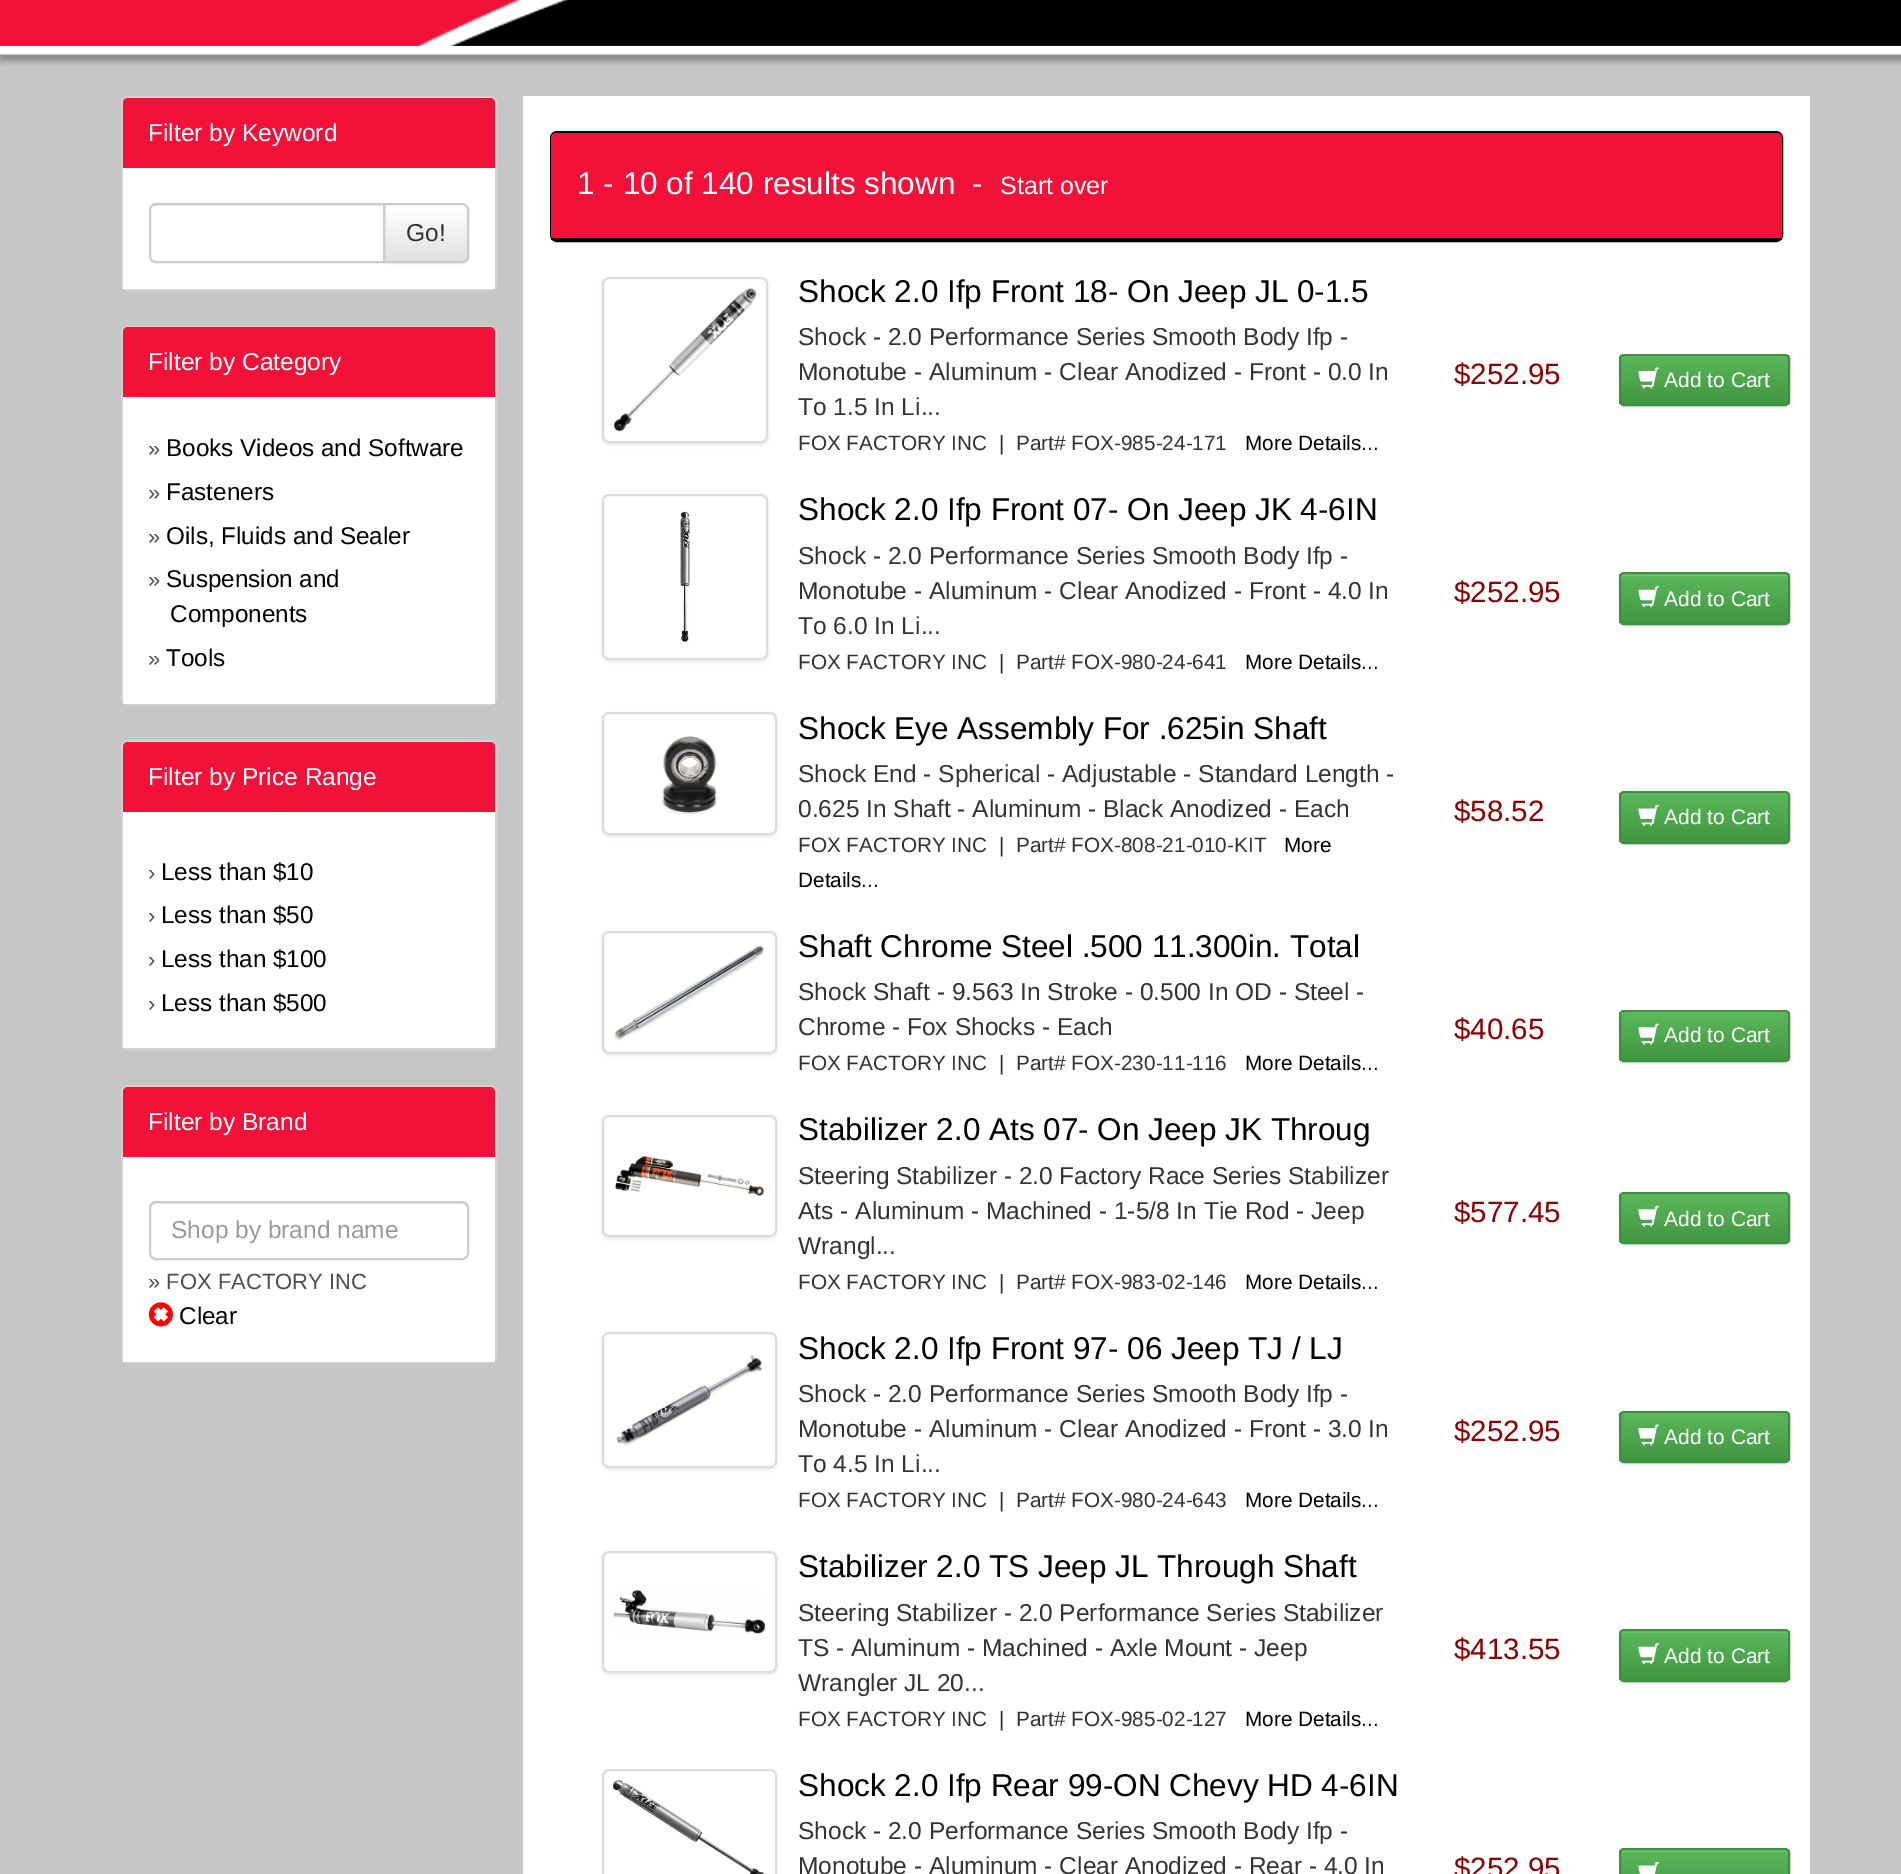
%!PS-Adobe-3.0
%%BoundingBox: 0 0 1901 1874
%%LanguageLevel: 3
%%Pages: 1
%%EndComments
%%BeginProlog
/setink { 3 { 255 div 3 1 roll } repeat setrgbcolor } def
/usefont { [ exch dup neg 0 0 3 -1 roll 0 0 ] selectfont } def
/drawtext { setink usefont moveto show } def
/fillbox { setink rectfill } def
/setalpha { dup .setfillconstantalpha .setstrokeconstantalpha } def
/rrect { 5 dict begin { /r /h /w /y /x } { exch def } forall
  x r add y moveto x w add y 2 copy h add r arct x w add y h add x 1 index r arct
  x y h add x y r arct x y 2 copy exch w add exch r arct closepath end } def
/softshadow { 12 dict begin { /a /b /q /h /w /y /x } { exch def } forall gsave /was 0 def
  9 -2 -9 { dup b mul 4 div /e exch def 1 sub .425 mul 2.718 exch exp 1 add a .99 .min exch div /now exch def
    1 1 now sub 1 was sub div sub setalpha /was now def
    w h .min e 2 mul add 0 gt { x e sub y e sub w e 2 mul add h e 2 mul add
      q e add b .6 mul add w h .min 2 div e add .min 0 .max rrect fill } if } for grestore end } def
/drawimage { 5 dict begin { /h /w /y /x /name } { exch def } forall
  gsave x y translate w h scale
  w h 8 [w 0 0 h 0 0] name (r) file false 3 colorimage grestore end } def
%%EndProlog
%%BeginSetup
<< /PageSize [1901 1874] /PageUsesTransparency true >> setpagedevice
%%EndSetup
%%Page: 1 1
0 .pushpdf14devicefilter
0 1874 translate 1 -1 scale
4 setmiterlimit
0 0 1901 1874 198 198 198 fillbox
(assets/img1.rgb) 0 0 1901 66 drawimage
211 211 211 setink
2 setlinewidth
122 97 374 193 6 rrect stroke
242 17 57 setink
128 98 moveto 490 98 lineto 493 98 495 100 495 103 curveto 495 168 lineto 123 168 lineto 123 103 lineto 123 100 125 98 128 98 curveto closepath fill
(Filter by Keyword) 148 141 /LiberationSans-Regular 24.5 255 255 255 drawtext
123 168 372 121 255 255 255 fillbox
0 0 0 setink
383 205 86 59 7 1 0.07 softshadow
gsave
383 203 moveto 462 203 lineto 466 203 469 206 469 210 curveto 469 256 lineto 469 260 466 263 462 263 curveto 383 263 lineto closepath clip newpath
gsave 385 205 moveto 469 205 lineto 469 261 lineto 385 261 lineto closepath clip newpath
<< /ShadingType 2 /ColorSpace /DeviceRGB /Coords [426 205 426 261] /Extend [true true] /Function << /FunctionType 2 /Domain [0 1] /C0 [1 1 1] /C1 [0.878 0.878 0.878] /N 1 >> >> shfill grestore
grestore
204 204 204 setink
384 204 moveto 462 204 lineto 465.5 204 468 206.5 468 210 curveto 468 256 lineto 468 259.5 465.5 262 462 262 curveto 384 262 lineto closepath stroke
255 255 255 setink
156 203 moveto 385 203 lineto 385 263 lineto 156 263 lineto 152 263 149 260 149 256 curveto 149 210 lineto 149 206 152 203 156 203 curveto closepath fill
236 236 236 setink
156 206 moveto 383 206 lineto 383 205 lineto 156 205 lineto 154 205 152 207 151 209 curveto 152 207 154 206 156 206 curveto closepath fill
204 204 204 setink
156 204 moveto 384 204 lineto 384 262 lineto 156 262 lineto 152.5 262 150 259.5 150 256 curveto 150 210 lineto 150 206.5 152.5 204 156 204 curveto closepath stroke
(Go!) 406 241 /LiberationSans-Regular 24.5 51 51 51 drawtext
211 211 211 setink
122 327 374 377 6 rrect stroke
242 17 57 setink
128 327 moveto 490 327 lineto 493 327 495 329 495 332 curveto 495 397 lineto 123 397 lineto 123 332 lineto 123 329 125 327 128 327 curveto closepath fill
(Filter by Category) 148 370 /LiberationSans-Regular 24.5 255 255 255 drawtext
123 397 372 307 255 255 255 fillbox
(») 148 456 /LiberationSans-Regular 22 77 77 77 drawtext
(Books Videos and Software) 166 456 /LiberationSans-Regular 24.25 0 0 0 drawtext
(») 148 500 /LiberationSans-Regular 22 77 77 77 drawtext
(Fasteners) 166 500 /LiberationSans-Regular 24.25 0 0 0 drawtext
(») 148 544 /LiberationSans-Regular 22 77 77 77 drawtext
(Oils, Fluids and Sealer) 166 544 /LiberationSans-Regular 24.25 0 0 0 drawtext
(») 148 587 /LiberationSans-Regular 22 77 77 77 drawtext
(Suspension and) 166 587 /LiberationSans-Regular 24.25 0 0 0 drawtext
(Components) 170 622 /LiberationSans-Regular 24.25 0 0 0 drawtext
(») 148 666 /LiberationSans-Regular 22 77 77 77 drawtext
(Tools) 166 666 /LiberationSans-Regular 24.25 0 0 0 drawtext
211 211 211 setink
122 741 374 308 6 rrect stroke
242 17 57 setink
128 742 moveto 490 742 lineto 493 742 495 744 495 747 curveto 495 812 lineto 123 812 lineto 123 747 lineto 123 744 125 742 128 742 curveto closepath fill
(Filter by Price Range) 148 785 /LiberationSans-Regular 24.5 255 255 255 drawtext
123 812 372 236 255 255 255 fillbox
(›) 148 880 /LiberationSans-Regular 22 77 77 77 drawtext
(Less than $10) 161 880 /LiberationSans-Regular 24.25 0 0 0 drawtext
(›) 148 923 /LiberationSans-Regular 22 77 77 77 drawtext
(Less than $50) 161 923 /LiberationSans-Regular 24.25 0 0 0 drawtext
(›) 148 967 /LiberationSans-Regular 22 77 77 77 drawtext
(Less than $100) 161 967 /LiberationSans-Regular 24.25 0 0 0 drawtext
(›) 148 1011 /LiberationSans-Regular 22 77 77 77 drawtext
(Less than $500) 161 1011 /LiberationSans-Regular 24.25 0 0 0 drawtext
211 211 211 setink
122 1086 374 276 6 rrect stroke
242 17 57 setink
128 1087 moveto 490 1087 lineto 493 1087 495 1089 495 1092 curveto 495 1157 lineto 123 1157 lineto 123 1092 lineto 123 1089 125 1087 128 1087 curveto closepath fill
(Filter by Brand) 148 1130 /LiberationSans-Regular 24.5 255 255 255 drawtext
123 1157 372 205 255 255 255 fillbox
236 236 236 setink
156 1204 moveto 462 1204 lineto 465 1204 467 1206 467 1209 curveto 467 1207 lineto 467 1204 465 1202 462 1202 curveto 156 1202 lineto 154 1202 151 1204 151 1206 curveto 152 1205 154 1204 156 1204 curveto closepath fill
204 204 204 setink
150 1202 318 57 6 rrect stroke
(Shop by brand name) 171 1238 /LiberationSans-Regular 24.5 153 153 153 drawtext
(» FOX FACTORY INC) 148 1289 /LiberationSans-Regular 22 77 77 77 drawtext
(assets/img2.rgb) 148 1302 25 25 drawimage
(Clear) 179 1324 /LiberationSans-Regular 24.25 0 0 0 drawtext
523 96 1287 1778 255 255 255 fillbox
0 0 0 setink
550 133 1233 110 7 2 0.05 softshadow
551 132 1231 109 6 rrect stroke
242 17 57 setink
556 133 moveto 1777 133 lineto 1780 133 1782 135 1782 138 curveto 1782 240 lineto 551 240 lineto 551 138 lineto 551 135 553 133 556 133 curveto closepath fill
551 238 1231 2 0 0 0 fillbox
(1 - 10 of 140 results shown) 577 194 /LiberationSans-Regular 31.5 255 255 255 drawtext
(-) 972 194 /LiberationSans-Regular 31.5 255 255 255 drawtext
(Start over) 1000 194 /LiberationSans-Regular 25 255 255 255 drawtext
0 0 0 setink
602 278 166 167 7 2 0.07 softshadow
255 255 255 setink
603 278 164 164 6 rrect gsave fill grestore
221 221 221 setink
stroke
(assets/img3.rgb) 613 287 144 145 drawimage
(Shock 2.0 Ifp Front 18- On Jeep JL 0-1.5) 798 302 /LiberationSans-Regular 31.5 0 0 0 drawtext
(Shock - 2.0 Performance Series Smooth Body Ifp -) 798 345 /LiberationSans-Regular 24.5 51 51 51 drawtext
(Monotube - Aluminum - Clear Anodized - Front - 0.0 In) 798 380 /LiberationSans-Regular 24.5 51 51 51 drawtext
(To 1.5 In Li...) 798 415 /LiberationSans-Regular 24.5 51 51 51 drawtext
(FOX FACTORY INC  |) 798 450 /LiberationSans-Regular 20.75 51 51 51 drawtext
(Part# FOX-985-24-171) 1016 450 /LiberationSans-Regular 20.75 51 51 51 drawtext
(More Details...) 1245 450 /LiberationSans-Regular 20.75 0 0 0 drawtext
($252.95) 1454 384 /LiberationSans-Regular 29.5 139 0 0 drawtext
0 0 0 setink
1619 355 171 53 5 1 0.07 softshadow
gsave
1619 354 171 52 5 rrect clip newpath
gsave 1619 355 moveto 1790 355 lineto 1790 404 lineto 1619 404 lineto closepath clip newpath
<< /ShadingType 2 /ColorSpace /DeviceRGB /Coords [1705 355 1705 404] /Extend [true true] /Function << /FunctionType 2 /Domain [0 1] /C0 [0.361 0.722 0.361] /C1 [0.255 0.588 0.255] /N 1 >> >> shfill grestore
grestore
0.15 setalpha
255 255 255 setink
1624 357 moveto 1785 357 lineto 1787 357 1788 359 1788 360 curveto 1788 403 lineto 1789 402 1789 401 1789 400 curveto 1789 359 lineto 1789 357 1787 355 1785 355 curveto 1625 355 lineto 1623 355 1621 356 1621 358 curveto closepath fill
1 setalpha
62 143 62 setink
1620 355 169 50 4 rrect stroke
(assets/img4.rgb) 1638 367 21 22 drawimage
(Add to Cart) 1664 387 /LiberationSans-Regular 21 255 255 255 drawtext
0 0 0 setink
602 495 166 167 7 2 0.07 softshadow
255 255 255 setink
603 495 164 164 6 rrect gsave fill grestore
221 221 221 setink
stroke
(assets/img5.rgb) 680 510 10 134 drawimage
(Shock 2.0 Ifp Front 07- On Jeep JK 4-6IN) 798 520 /LiberationSans-Regular 31.5 0 0 0 drawtext
(Shock - 2.0 Performance Series Smooth Body Ifp -) 798 564 /LiberationSans-Regular 24.5 51 51 51 drawtext
(Monotube - Aluminum - Clear Anodized - Front - 4.0 In) 798 599 /LiberationSans-Regular 24.5 51 51 51 drawtext
(To 6.0 In Li...) 798 634 /LiberationSans-Regular 24.5 51 51 51 drawtext
(FOX FACTORY INC  |) 798 669 /LiberationSans-Regular 20.75 51 51 51 drawtext
(Part# FOX-980-24-641) 1016 669 /LiberationSans-Regular 20.75 51 51 51 drawtext
(More Details...) 1245 669 /LiberationSans-Regular 20.75 0 0 0 drawtext
($252.95) 1454 602 /LiberationSans-Regular 29.5 139 0 0 drawtext
0 0 0 setink
1619 574 171 53 5 1 0.07 softshadow
gsave
1619 572 171 53 5 rrect clip newpath
gsave 1619 574 moveto 1790 574 lineto 1790 623 lineto 1619 623 lineto closepath clip newpath
<< /ShadingType 2 /ColorSpace /DeviceRGB /Coords [1705 574 1705 623] /Extend [true true] /Function << /FunctionType 2 /Domain [0 1] /C0 [0.361 0.722 0.361] /C1 [0.255 0.588 0.255] /N 1 >> >> shfill grestore
grestore
0.15 setalpha
255 255 255 setink
1624 576 moveto 1785 576 lineto 1787 576 1788 577 1788 579 curveto 1788 622 lineto 1789 621 1789 620 1789 619 curveto 1789 578 lineto 1789 576 1787 574 1785 574 curveto 1625 574 lineto 1623 574 1622 575 1621 577 curveto closepath fill
1 setalpha
62 143 62 setink
1620 573 169 51 4 rrect stroke
(assets/img6.rgb) 1638 586 21 22 drawimage
(Add to Cart) 1664 606 /LiberationSans-Regular 21 255 255 255 drawtext
0 0 0 setink
602 714 175 123 7 2 0.07 softshadow
255 255 255 setink
603 713 173 121 6 rrect gsave fill grestore
221 221 221 setink
stroke
(assets/img7.rgb) 661 736 57 80 drawimage
(Shock Eye Assembly For .625in Shaft) 798 739 /LiberationSans-Regular 31.5 0 0 0 drawtext
(Shock End - Spherical - Adjustable - Standard Length -) 798 782 /LiberationSans-Regular 24.5 51 51 51 drawtext
(0.625 In Shaft - Aluminum - Black Anodized - Each) 798 817 /LiberationSans-Regular 24.5 51 51 51 drawtext
(FOX FACTORY INC  |) 798 852 /LiberationSans-Regular 20.75 51 51 51 drawtext
(Part# FOX-808-21-010-KIT) 1016 852 /LiberationSans-Regular 20.75 51 51 51 drawtext
(More) 1284 852 /LiberationSans-Regular 20.75 0 0 0 drawtext
(Details...) 798 887 /LiberationSans-Regular 20.75 0 0 0 drawtext
($58.52) 1454 821 /LiberationSans-Regular 29.5 139 0 0 drawtext
0 0 0 setink
1619 793 171 52 5 1 0.07 softshadow
gsave
1619 791 171 53 5 rrect clip newpath
gsave 1619 793 moveto 1790 793 lineto 1790 842 lineto 1619 842 lineto closepath clip newpath
<< /ShadingType 2 /ColorSpace /DeviceRGB /Coords [1705 793 1705 842] /Extend [true true] /Function << /FunctionType 2 /Domain [0 1] /C0 [0.361 0.722 0.361] /C1 [0.255 0.588 0.255] /N 1 >> >> shfill grestore
grestore
0.15 setalpha
255 255 255 setink
1624 794 moveto 1785 794 lineto 1787 794 1788 796 1788 798 curveto 1788 841 lineto 1789 840 1789 839 1789 838 curveto 1789 797 lineto 1789 795 1787 793 1785 793 curveto 1625 793 lineto 1624 793 1622 794 1622 795 curveto closepath fill
1 setalpha
62 143 62 setink
1620 792 169 51 4 rrect stroke
(assets/img8.rgb) 1638 805 21 21 drawimage
(Add to Cart) 1664 824 /LiberationSans-Regular 21 255 255 255 drawtext
0 0 0 setink
602 933 175 122 7 2 0.07 softshadow
255 255 255 setink
603 932 173 121 6 rrect gsave fill grestore
221 221 221 setink
stroke
(assets/img9.rgb) 613 946 152 95 drawimage
(Shaft Chrome Steel .500 11.300in. Total) 798 957 /LiberationSans-Regular 31.5 0 0 0 drawtext
(Shock Shaft - 9.563 In Stroke - 0.500 In OD - Steel -) 798 1000 /LiberationSans-Regular 24.5 51 51 51 drawtext
(Chrome - Fox Shocks - Each) 798 1035 /LiberationSans-Regular 24.5 51 51 51 drawtext
(FOX FACTORY INC  |) 798 1070 /LiberationSans-Regular 20.75 51 51 51 drawtext
(Part# FOX-230-11-116) 1016 1070 /LiberationSans-Regular 20.75 51 51 51 drawtext
(More Details...) 1245 1070 /LiberationSans-Regular 20.75 0 0 0 drawtext
($40.65) 1454 1039 /LiberationSans-Regular 29.5 139 0 0 drawtext
0 0 0 setink
1619 1012 171 52 5 1 0.07 softshadow
gsave
1619 1010 171 52 5 rrect clip newpath
gsave 1619 1012 moveto 1790 1012 lineto 1790 1061 lineto 1619 1061 lineto closepath clip newpath
<< /ShadingType 2 /ColorSpace /DeviceRGB /Coords [1705 1012 1705 1061] /Extend [true true] /Function << /FunctionType 2 /Domain [0 1] /C0 [0.361 0.722 0.361] /C1 [0.255 0.588 0.255] /N 1 >> >> shfill grestore
grestore
0.15 setalpha
255 255 255 setink
1624 1013 moveto 1785 1013 lineto 1787 1013 1788 1015 1788 1017 curveto 1788 1060 lineto 1789 1059 1789 1058 1789 1057 curveto 1789 1016 lineto 1789 1014 1787 1012 1785 1012 curveto 1625 1012 lineto 1624 1012 1622 1013 1622 1014 curveto closepath fill
1 setalpha
62 143 62 setink
1620 1011 169 50 4 rrect stroke
(assets/img10.rgb) 1638 1023 21 22 drawimage
(Add to Cart) 1664 1042 /LiberationSans-Regular 21 255 255 255 drawtext
0 0 0 setink
602 1117 175 122 7 2 0.07 softshadow
255 255 255 setink
603 1116 173 120 6 rrect gsave fill grestore
221 221 221 setink
stroke
(assets/img11.rgb) 615 1156 149 40 drawimage
(Stabilizer 2.0 Ats 07- On Jeep JK Throug) 798 1140 /LiberationSans-Regular 31.5 0 0 0 drawtext
(Steering Stabilizer - 2.0 Factory Race Series Stabilizer) 798 1184 /LiberationSans-Regular 24.5 51 51 51 drawtext
(Ats - Aluminum - Machined - 1-5/8 In Tie Rod - Jeep) 798 1219 /LiberationSans-Regular 24.5 51 51 51 drawtext
(Wrangl...) 798 1254 /LiberationSans-Regular 24.5 51 51 51 drawtext
(FOX FACTORY INC  |) 798 1289 /LiberationSans-Regular 20.75 51 51 51 drawtext
(Part# FOX-983-02-146) 1016 1289 /LiberationSans-Regular 20.75 51 51 51 drawtext
(More Details...) 1245 1289 /LiberationSans-Regular 20.75 0 0 0 drawtext
($577.45) 1454 1222 /LiberationSans-Regular 29.5 139 0 0 drawtext
0 0 0 setink
1619 1194 171 52 5 1 0.07 softshadow
gsave
1619 1192 171 52 5 rrect clip newpath
gsave 1619 1194 moveto 1790 1194 lineto 1790 1243 lineto 1619 1243 lineto closepath clip newpath
<< /ShadingType 2 /ColorSpace /DeviceRGB /Coords [1705 1194 1705 1243] /Extend [true true] /Function << /FunctionType 2 /Domain [0 1] /C0 [0.361 0.722 0.361] /C1 [0.255 0.588 0.255] /N 1 >> >> shfill grestore
grestore
0.15 setalpha
255 255 255 setink
1624 1195 moveto 1785 1195 lineto 1787 1195 1788 1197 1788 1199 curveto 1788 1242 lineto 1789 1241 1789 1240 1789 1239 curveto 1789 1198 lineto 1789 1196 1787 1194 1785 1194 curveto 1625 1194 lineto 1624 1194 1622 1195 1622 1196 curveto closepath fill
1 setalpha
62 143 62 setink
1620 1193 169 50 4 rrect stroke
(assets/img10.rgb) 1638 1205 21 22 drawimage
(Add to Cart) 1664 1226 /LiberationSans-Regular 21 255 255 255 drawtext
0 0 0 setink
602 1334 175 136 7 2 0.07 softshadow
255 255 255 setink
603 1333 173 134 6 rrect gsave fill grestore
221 221 221 setink
stroke
(assets/img12.rgb) 616 1355 147 91 drawimage
(Shock 2.0 Ifp Front 97- 06 Jeep TJ / LJ) 798 1359 /LiberationSans-Regular 31.5 0 0 0 drawtext
(Shock - 2.0 Performance Series Smooth Body Ifp -) 798 1402 /LiberationSans-Regular 24.5 51 51 51 drawtext
(Monotube - Aluminum - Clear Anodized - Front - 3.0 In) 798 1437 /LiberationSans-Regular 24.5 51 51 51 drawtext
(To 4.5 In Li...) 798 1472 /LiberationSans-Regular 24.5 51 51 51 drawtext
(FOX FACTORY INC  |) 798 1507 /LiberationSans-Regular 20.75 51 51 51 drawtext
(Part# FOX-980-24-643) 1016 1507 /LiberationSans-Regular 20.75 51 51 51 drawtext
(More Details...) 1245 1507 /LiberationSans-Regular 20.75 0 0 0 drawtext
($252.95) 1454 1441 /LiberationSans-Regular 29.5 139 0 0 drawtext
0 0 0 setink
1619 1412 171 53 5 1 0.07 softshadow
gsave
1619 1411 171 52 5 rrect clip newpath
gsave 1619 1412 moveto 1790 1412 lineto 1790 1461 lineto 1619 1461 lineto closepath clip newpath
<< /ShadingType 2 /ColorSpace /DeviceRGB /Coords [1705 1412 1705 1461] /Extend [true true] /Function << /FunctionType 2 /Domain [0 1] /C0 [0.361 0.722 0.361] /C1 [0.255 0.588 0.255] /N 1 >> >> shfill grestore
grestore
0.15 setalpha
255 255 255 setink
1624 1414 moveto 1785 1414 lineto 1787 1414 1788 1416 1788 1418 curveto 1788 1460 lineto 1789 1459 1789 1458 1789 1457 curveto 1789 1416 lineto 1789 1414 1787 1412 1785 1412 curveto 1625 1412 lineto 1623 1412 1621 1414 1621 1415 curveto closepath fill
1 setalpha
62 143 62 setink
1620 1412 169 50 4 rrect stroke
(assets/img4.rgb) 1638 1424 21 22 drawimage
(Add to Cart) 1664 1444 /LiberationSans-Regular 21 255 255 255 drawtext
0 0 0 setink
602 1552 175 123 7 2 0.07 softshadow
255 255 255 setink
603 1552 173 120 6 rrect gsave fill grestore
221 221 221 setink
stroke
(assets/img13.rgb) 613 1590 153 44 drawimage
(Stabilizer 2.0 TS Jeep JL Through Shaft) 798 1577 /LiberationSans-Regular 31.5 0 0 0 drawtext
(Steering Stabilizer - 2.0 Performance Series Stabilizer) 798 1621 /LiberationSans-Regular 24.5 51 51 51 drawtext
(TS - Aluminum - Machined - Axle Mount - Jeep) 798 1656 /LiberationSans-Regular 24.5 51 51 51 drawtext
(Wrangler JL 20...) 798 1691 /LiberationSans-Regular 24.5 51 51 51 drawtext
(FOX FACTORY INC  |) 798 1726 /LiberationSans-Regular 20.75 51 51 51 drawtext
(Part# FOX-985-02-127) 1016 1726 /LiberationSans-Regular 20.75 51 51 51 drawtext
(More Details...) 1245 1726 /LiberationSans-Regular 20.75 0 0 0 drawtext
($413.55) 1454 1659 /LiberationSans-Regular 29.5 139 0 0 drawtext
0 0 0 setink
1619 1631 171 53 5 1 0.07 softshadow
gsave
1619 1629 171 53 5 rrect clip newpath
gsave 1619 1631 moveto 1790 1631 lineto 1790 1680 lineto 1619 1680 lineto closepath clip newpath
<< /ShadingType 2 /ColorSpace /DeviceRGB /Coords [1705 1631 1705 1680] /Extend [true true] /Function << /FunctionType 2 /Domain [0 1] /C0 [0.361 0.722 0.361] /C1 [0.255 0.588 0.255] /N 1 >> >> shfill grestore
grestore
0.15 setalpha
255 255 255 setink
1624 1633 moveto 1785 1633 lineto 1787 1633 1788 1634 1788 1636 curveto 1788 1679 lineto 1789 1678 1789 1677 1789 1676 curveto 1789 1635 lineto 1789 1633 1787 1631 1785 1631 curveto 1625 1631 lineto 1623 1631 1622 1632 1621 1634 curveto closepath fill
1 setalpha
62 143 62 setink
1620 1630 169 51 4 rrect stroke
(assets/img6.rgb) 1638 1643 21 22 drawimage
(Add to Cart) 1664 1663 /LiberationSans-Regular 21 255 255 255 drawtext
221 221 221 setink
603 1770 173 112 6 rrect stroke
(assets/img14.rgb) 613 1780 151 94 drawimage
(Shock 2.0 Ifp Rear 99-ON Chevy HD 4-6IN) 798 1796 /LiberationSans-Regular 31.5 0 0 0 drawtext
(Shock - 2.0 Performance Series Smooth Body Ifp -) 798 1839 /LiberationSans-Regular 24.5 51 51 51 drawtext
(Monotube - Aluminum - Clear Anodized - Rear - 4.0 In) 798 1874 /LiberationSans-Regular 24.5 51 51 51 drawtext
($252.95) 1454 1878 /LiberationSans-Regular 29.5 139 0 0 drawtext
gsave
1619 1848 171 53 5 rrect clip newpath
gsave 1619 1850 moveto 1790 1850 lineto 1790 1874 lineto 1619 1874 lineto closepath clip newpath
<< /ShadingType 2 /ColorSpace /DeviceRGB /Coords [1705 1850 1705 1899] /Extend [true true] /Function << /FunctionType 2 /Domain [0 1] /C0 [0.361 0.722 0.361] /C1 [0.255 0.588 0.255] /N 1 >> >> shfill grestore
grestore
0.15 setalpha
255 255 255 setink
1624 1852 moveto 1785 1852 lineto 1787 1852 1788 1853 1788 1855 curveto 1788 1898 lineto 1789 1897 1789 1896 1789 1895 curveto 1789 1854 lineto 1789 1852 1787 1850 1785 1850 curveto 1625 1850 lineto 1623 1850 1622 1851 1621 1853 curveto closepath fill
1 setalpha
62 143 62 setink
1620 1849 169 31 4 rrect stroke
(assets/img15.rgb) 1638 1862 21 12 drawimage
.poppdf14devicefilter showpage
%%EOF
